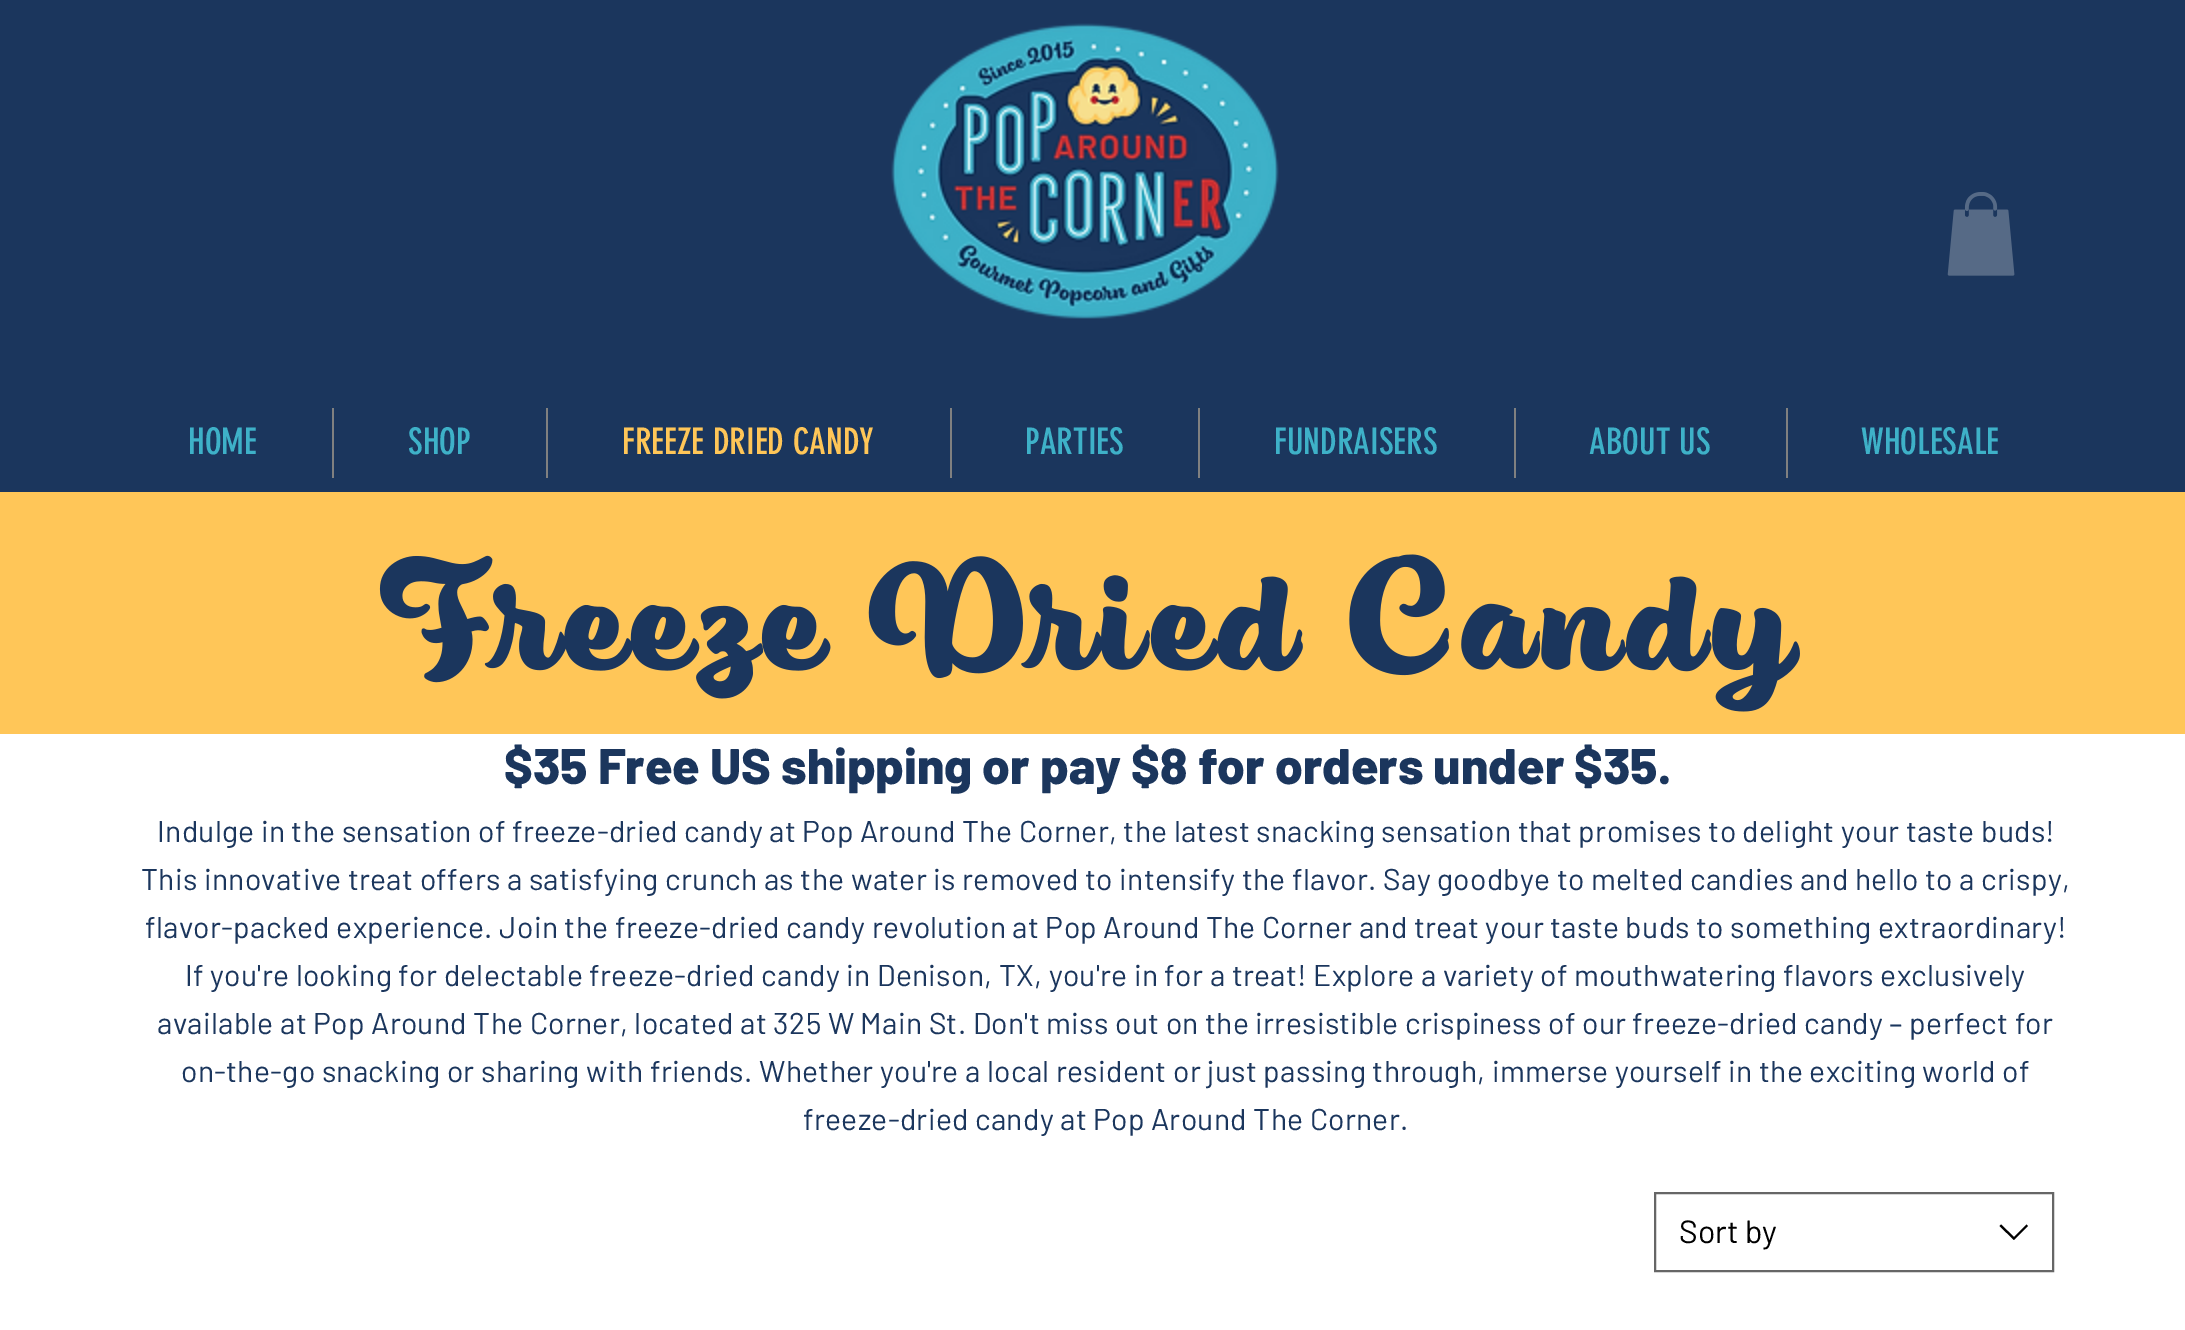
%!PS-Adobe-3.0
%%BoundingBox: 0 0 2185 1330
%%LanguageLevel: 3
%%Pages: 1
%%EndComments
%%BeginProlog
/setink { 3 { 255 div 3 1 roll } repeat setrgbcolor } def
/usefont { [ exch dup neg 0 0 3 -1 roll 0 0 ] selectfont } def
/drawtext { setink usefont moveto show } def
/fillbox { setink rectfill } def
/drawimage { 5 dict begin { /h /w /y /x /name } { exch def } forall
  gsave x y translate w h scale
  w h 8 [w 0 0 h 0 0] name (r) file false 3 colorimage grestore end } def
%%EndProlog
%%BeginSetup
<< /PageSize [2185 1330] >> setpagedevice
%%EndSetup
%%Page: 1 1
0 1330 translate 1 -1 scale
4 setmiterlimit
0 0 2185 1330 255 255 255 fillbox
0 0 2185 492 27 54 93 fillbox
(assets/img1.rgb) 891 23 388 296 drawimage
(assets/img2.rgb) 1947 192 68 84 drawimage
(HOME) 188 454 /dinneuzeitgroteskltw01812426-Regular 36 62 177 200 drawtext
332 408 2 70 128 128 128 fillbox
(SHOP) 408 454 /dinneuzeitgroteskltw01812426-Regular 36 62 177 200 drawtext
546 408 2 70 128 128 128 fillbox
(FREEZE DRIED CANDY) 622 454 /dinneuzeitgroteskltw01812426-Regular 36 255 198 88 drawtext
950 408 2 70 128 128 128 fillbox
(PARTIES) 1025 454 /dinneuzeitgroteskltw01812426-Regular 36 62 177 200 drawtext
1198 408 2 70 128 128 128 fillbox
(FUNDRAISERS) 1274 454 /dinneuzeitgroteskltw01812426-Regular 36 62 177 200 drawtext
1514 408 2 70 128 128 128 fillbox
(ABOUT US) 1589 454 /dinneuzeitgroteskltw01812426-Regular 36 62 177 200 drawtext
1786 408 2 70 128 128 128 fillbox
(WHOLESALE) 1861 454 /dinneuzeitgroteskltw01812426-Regular 36 62 177 200 drawtext
0 492 2185 242 255 198 88 fillbox
(assets/img3.rgb) 379 554 1421 158 drawimage
($35 Free US shipping or pay $8 for orders under $35.) 504 784 /Barlow-ExtraBold 50 27 54 93 drawtext
/Barlow-Regular 30 usefont
157 842 moveto 0.3 0 (Indulge in the sensation of freeze-dried candy at Pop Around The Corner, the latest snacking sensation that promises to delight your taste buds!) ashow
141 890 moveto 0.3 0 (This innovative treat offers a satisfying crunch as the water is removed to intensify the flavor. Say goodbye to melted candies and hello to a crispy,) ashow
145 938 moveto 0.3 0 (flavor-packed experience. Join the freeze-dried candy revolution at Pop Around The Corner and treat your taste buds to something extraordinary!) ashow
185 986 moveto 0.3 0 (If you're looking for delectable freeze-dried candy in Denison, TX, you're in for a treat! Explore a variety of mouthwatering flavors exclusively) ashow
157 1034 moveto 0.3 0 (available at Pop Around The Corner, located at 325 W Main St. Don't miss out on the irresistible crispiness of our freeze-dried candy – perfect for) ashow
181 1082 moveto 0.3 0 (on-the-go snacking or sharing with friends. Whether you're a local resident or just passing through, immerse yourself in the exciting world of) ashow
803 1130 moveto 0.3 0 (freeze-dried candy at Pop Around The Corner.) ashow
102 102 102 setink
2 setlinewidth
1655 1193 398 78 rectstroke
(Sort by) 1679 1243 /Barlow-Regular 32 0 0 0 drawtext
2026.5 1224.5 moveto 2028 1226 lineto 2014 1240 lineto 1999.5 1226 lineto 2001 1224.5 lineto 2014 1237 lineto closepath eofill
showpage
%%EOF
